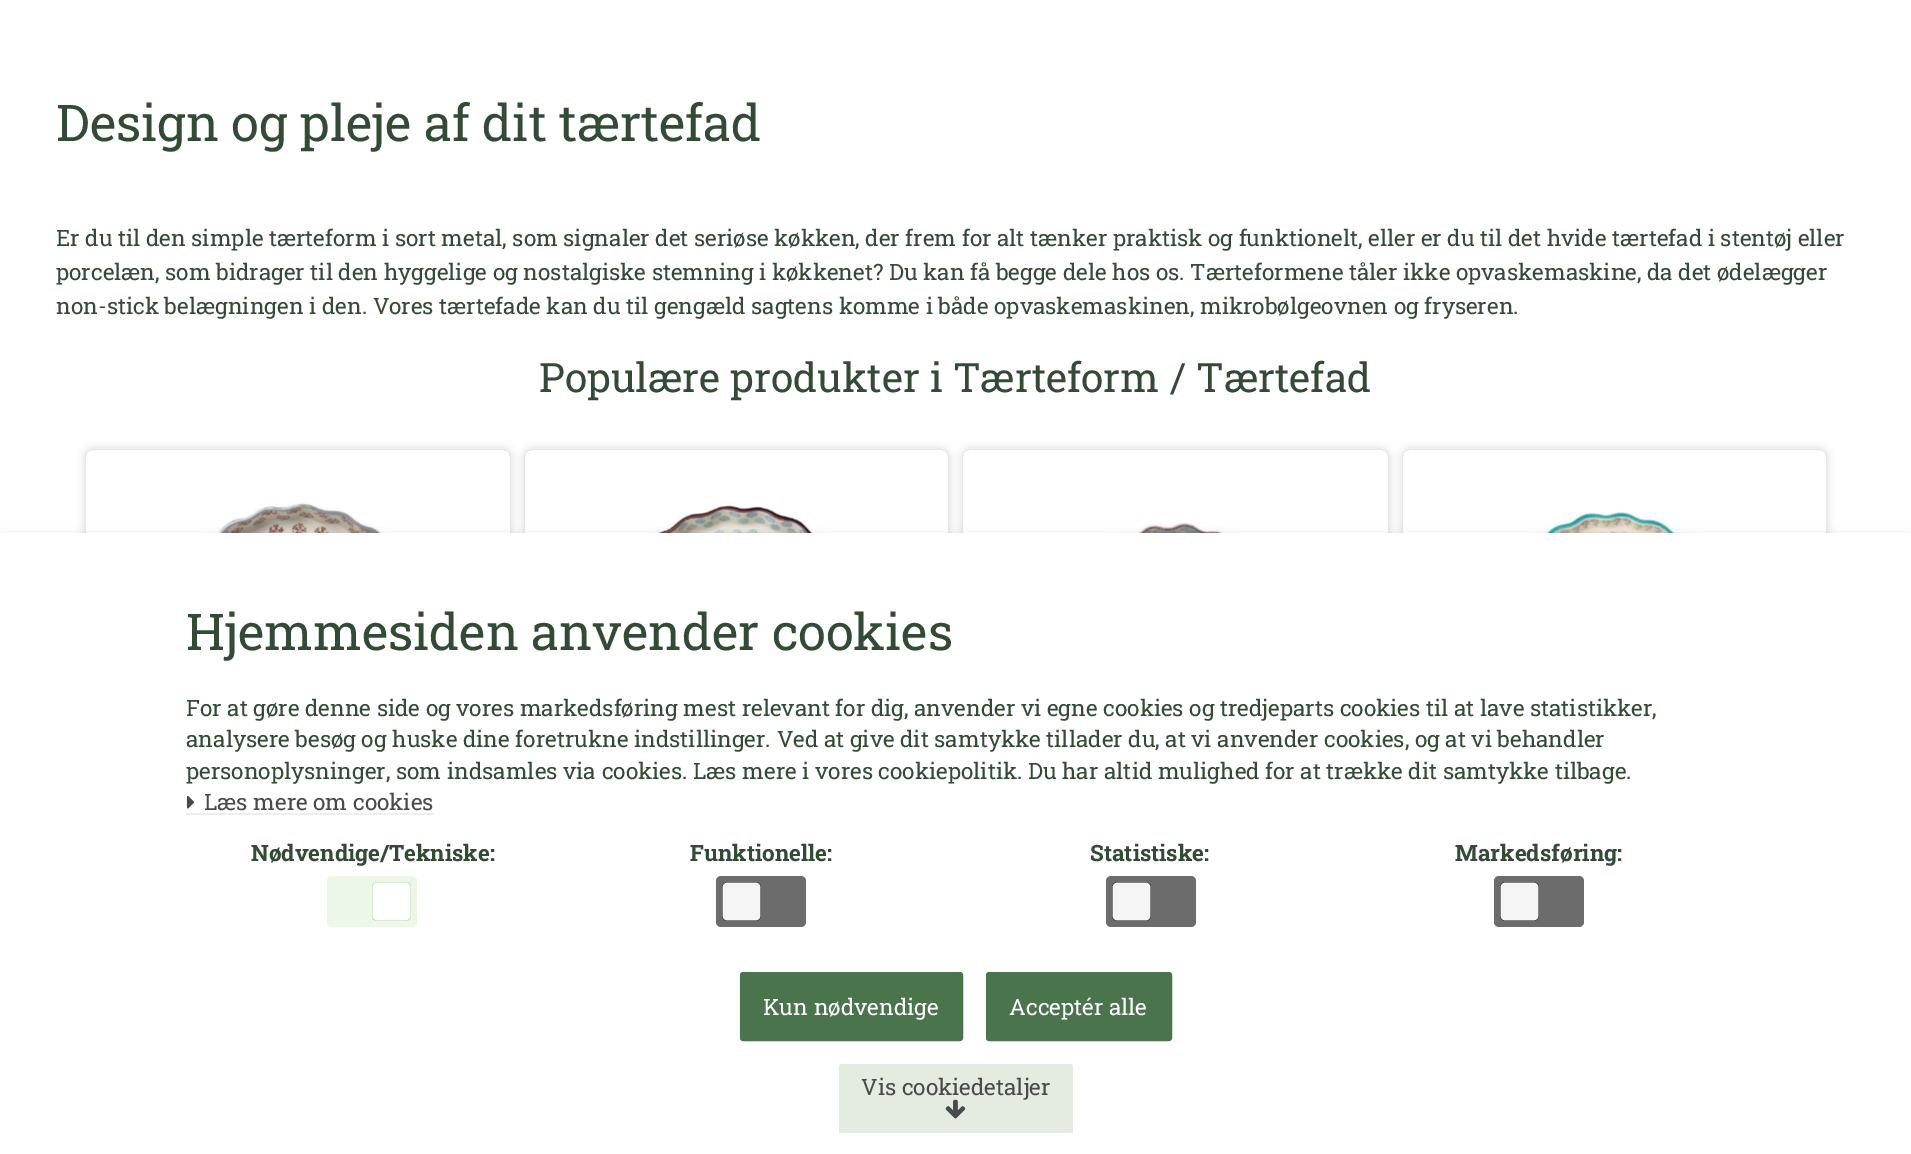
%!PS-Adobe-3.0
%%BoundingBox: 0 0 1911 1154
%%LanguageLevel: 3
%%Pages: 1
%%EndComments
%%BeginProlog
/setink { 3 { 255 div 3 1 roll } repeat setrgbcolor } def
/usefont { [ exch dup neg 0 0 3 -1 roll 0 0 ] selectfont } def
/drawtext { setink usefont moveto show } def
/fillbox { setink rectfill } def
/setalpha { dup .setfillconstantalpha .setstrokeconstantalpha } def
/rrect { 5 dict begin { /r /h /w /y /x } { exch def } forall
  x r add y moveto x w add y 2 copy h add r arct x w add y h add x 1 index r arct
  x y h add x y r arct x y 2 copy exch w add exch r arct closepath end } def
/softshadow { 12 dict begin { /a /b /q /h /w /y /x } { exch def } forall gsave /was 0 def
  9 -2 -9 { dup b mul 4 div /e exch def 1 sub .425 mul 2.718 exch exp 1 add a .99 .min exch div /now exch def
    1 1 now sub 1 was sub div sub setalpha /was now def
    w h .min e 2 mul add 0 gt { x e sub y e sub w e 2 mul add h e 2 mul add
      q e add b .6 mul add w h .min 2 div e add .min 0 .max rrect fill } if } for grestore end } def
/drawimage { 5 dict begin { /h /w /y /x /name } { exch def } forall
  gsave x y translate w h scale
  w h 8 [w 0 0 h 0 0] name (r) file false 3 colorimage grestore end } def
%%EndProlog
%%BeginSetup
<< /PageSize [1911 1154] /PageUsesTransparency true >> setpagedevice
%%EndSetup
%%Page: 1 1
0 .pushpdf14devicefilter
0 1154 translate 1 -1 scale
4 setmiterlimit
0 0 1911 1154 255 255 255 fillbox
(Design og pleje af dit tærtefad) 56 141 /RobotoSlab-Regular 50.6 49 75 52 drawtext
(Er du til den simple tærteform i sort metal, som signaler det seriøse køkken, der frem for alt tænker praktisk og funktionelt, eller er du til det hvide tærtefad i stentøj eller) 56 246 /RobotoSlab-Regular 22.5 49 75 52 drawtext
(porcelæn, som bidrager til den hyggelige og nostalgiske stemning i køkkenet? Du kan få begge dele hos os. Tærteformene tåler ikke opvaskemaskine, da det ødelægger) 56 280 /RobotoSlab-Regular 22.5 49 75 52 drawtext
(non-stick belægningen i den. Vores tærtefade kan du til gengæld sagtens komme i både opvaskemaskinen, mikrobølgeovnen og fryseren.) 56 314 /RobotoSlab-Regular 22.5 49 75 52 drawtext
(Populære produkter i Tærteform / Tærtefad) 539 392 /RobotoSlab-Regular 40.5 49 75 52 drawtext
gsave
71 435 moveto 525 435 lineto 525 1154 lineto 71 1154 lineto closepath 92 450 moveto 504 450 lineto 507.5 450 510 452.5 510 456 curveto 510 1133 lineto 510 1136.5 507.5 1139 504 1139 curveto 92 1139 lineto 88.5 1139 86 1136.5 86 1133 curveto 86 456 lineto 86 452.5 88.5 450 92 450 curveto closepath eoclip newpath
20 20 20 setink
86 450 424 689 6 4.5 0.2 softshadow
grestore
(assets/img1.rgb) 165 502 267 31 drawimage
gsave
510 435 moveto 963 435 lineto 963 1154 lineto 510 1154 lineto closepath 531 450 moveto 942 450 lineto 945.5 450 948 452.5 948 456 curveto 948 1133 lineto 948 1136.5 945.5 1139 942 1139 curveto 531 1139 lineto 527.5 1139 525 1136.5 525 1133 curveto 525 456 lineto 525 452.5 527.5 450 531 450 curveto closepath eoclip newpath
20 20 20 setink
525 450 423 689 6 4.5 0.2 softshadow
grestore
(assets/img2.rgb) 605 503 264 30 drawimage
gsave
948 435 moveto 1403 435 lineto 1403 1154 lineto 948 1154 lineto closepath 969 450 moveto 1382 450 lineto 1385.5 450 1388 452.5 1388 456 curveto 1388 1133 lineto 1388 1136.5 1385.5 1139 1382 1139 curveto 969 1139 lineto 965.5 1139 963 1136.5 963 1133 curveto 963 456 lineto 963 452.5 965.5 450 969 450 curveto closepath eoclip newpath
20 20 20 setink
963 450 425 689 6 4.5 0.2 softshadow
grestore
(assets/img3.rgb) 1058 522 233 11 drawimage
gsave
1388 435 moveto 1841 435 lineto 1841 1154 lineto 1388 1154 lineto closepath 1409 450 moveto 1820 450 lineto 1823.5 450 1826 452.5 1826 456 curveto 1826 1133 lineto 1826 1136.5 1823.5 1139 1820 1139 curveto 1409 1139 lineto 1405.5 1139 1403 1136.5 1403 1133 curveto 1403 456 lineto 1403 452.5 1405.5 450 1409 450 curveto closepath eoclip newpath
20 20 20 setink
1403 450 423 689 6 4.5 0.2 softshadow
grestore
(assets/img4.rgb) 1492 511 249 22 drawimage
0 0 0 setink
0 537 1911 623 0 4.5 0.23 softshadow
0 533 1911 621 255 255 255 fillbox
(Hjemmesiden anvender cookies) 186 650 /RobotoSlab-Regular 50.6 49 75 52 drawtext
(For at gøre denne side og vores markedsføring mest relevant for dig, anvender vi egne cookies og tredjeparts cookies til at lave statistikker,) 186 716 /RobotoSlab-Regular 22.5 49 75 52 drawtext
(analysere besøg og huske dine foretrukne indstillinger. Ved at give dit samtykke tillader du, at vi anvender cookies, og at vi behandler) 186 747 /RobotoSlab-Regular 22.5 49 75 52 drawtext
(personoplysninger, som indsamles via cookies. Læs mere i vores cookiepolitik. Du har altid mulighed for at trække dit samtykke tilbage.) 186 779 /RobotoSlab-Regular 22.5 49 75 52 drawtext
186 813 248 2 238 238 238 fillbox
(assets/img5.rgb) 186 795 9 14 drawimage
(Læs mere om cookies) 204 810 /RobotoSlab-Regular 22.5 74 74 74 drawtext
(Nødvendige/Tekniske:) 251 861 /RobotoSlab-Bold 22.5 49 75 52 drawtext
236 247 232 setink
327 876 90 51 5 rrect fill
179 222 165 setink
0.3 setlinewidth
372.15 882.15 38.7 38.7 4.85 rrect stroke
255 255 255 setink
372.15 882.15 38.7 38.7 4.85 rrect gsave fill grestore
179 222 165 setink
stroke
(Funktionelle:) 690 861 /RobotoSlab-Bold 22.5 49 75 52 drawtext
108 108 108 setink
716 876 90 51 5 rrect fill
32 32 32 setink
722.15 882.15 38.7 38.7 4.85 rrect stroke
245 245 245 setink
722.15 882.15 38.7 38.7 4.85 rrect gsave fill grestore
32 32 32 setink
stroke
(Statistiske:) 1090 861 /RobotoSlab-Bold 22.5 49 75 52 drawtext
108 108 108 setink
1106 876 90 51 5 rrect fill
32 32 32 setink
1112.15 882.15 38.7 38.7 4.85 rrect stroke
245 245 245 setink
1112.15 882.15 38.7 38.7 4.85 rrect gsave fill grestore
32 32 32 setink
stroke
(Markedsføring:) 1455 861 /RobotoSlab-Bold 22.5 49 75 52 drawtext
108 108 108 setink
1494 876 90 51 5 rrect fill
32 32 32 setink
1500.15 882.15 38.7 38.7 4.85 rrect stroke
245 245 245 setink
1500.15 882.15 38.7 38.7 4.85 rrect gsave fill grestore
32 32 32 setink
stroke
73 116 76 setink
741 973 221 67 2 rrect gsave fill grestore
2 setlinewidth
stroke
(Kun nødvendige) 763 1015 /RobotoSlab-Regular 22.5 255 255 255 drawtext
73 116 76 setink
987 973 184 67 2 rrect gsave fill grestore
stroke
(Acceptér alle) 1009 1015 /RobotoSlab-Regular 22.5 255 255 255 drawtext
228 236 225 setink
842 1064 moveto 1070 1064 lineto 1071.5 1064 1073 1065.5 1073 1067 curveto 1073 1133 lineto 839 1133 lineto 839 1067 lineto 839 1065.5 840.5 1064 842 1064 curveto closepath fill
(Vis cookiedetaljer) 861 1095 /RobotoSlab-Regular 22.5 74 74 74 drawtext
(assets/img6.rgb) 945 1099 21 20 drawimage
.poppdf14devicefilter showpage
%%EOF
